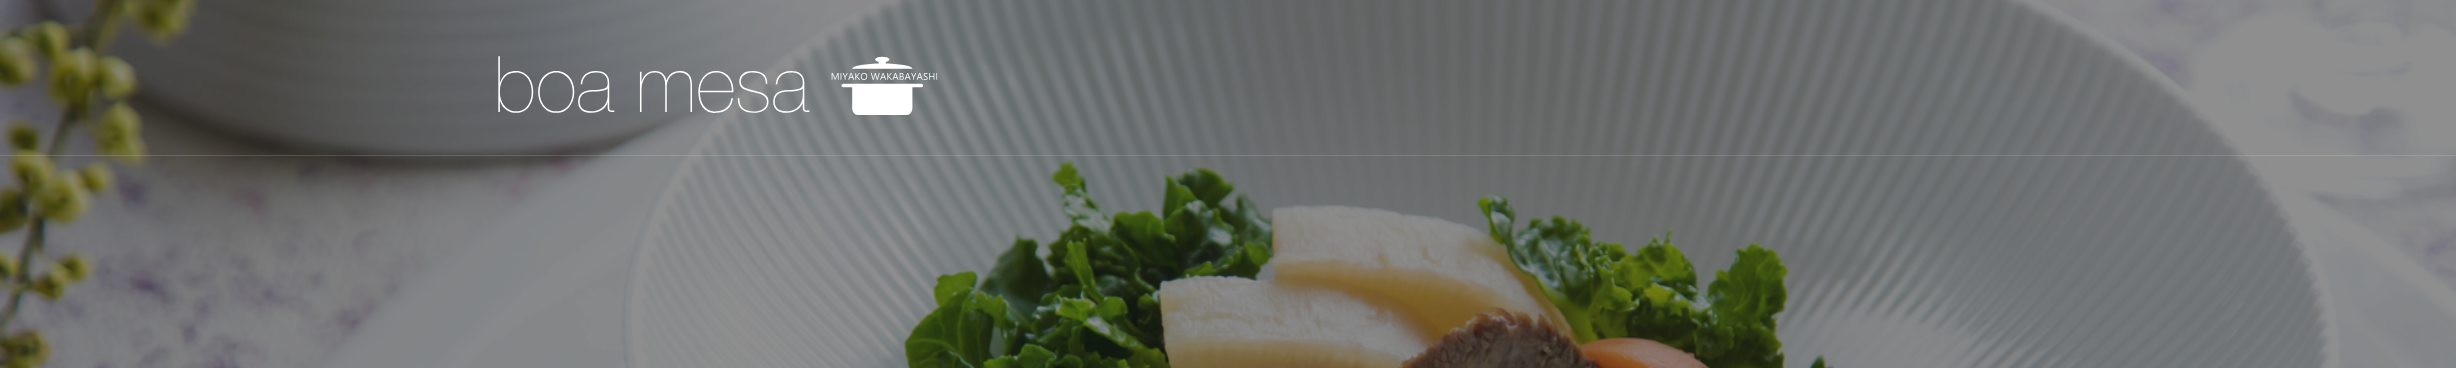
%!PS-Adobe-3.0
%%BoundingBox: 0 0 2456 368
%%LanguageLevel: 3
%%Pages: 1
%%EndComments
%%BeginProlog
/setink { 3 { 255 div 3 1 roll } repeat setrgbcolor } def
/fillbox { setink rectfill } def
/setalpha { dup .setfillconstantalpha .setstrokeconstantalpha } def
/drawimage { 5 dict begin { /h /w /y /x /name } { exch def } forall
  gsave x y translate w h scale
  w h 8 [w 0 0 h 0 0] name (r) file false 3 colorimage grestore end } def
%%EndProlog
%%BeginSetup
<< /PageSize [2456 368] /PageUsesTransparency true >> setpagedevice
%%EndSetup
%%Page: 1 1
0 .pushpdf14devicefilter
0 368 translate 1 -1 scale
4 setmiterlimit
0 0 2456 368 255 255 255 fillbox
(assets/img1.rgb) 0 0 2456 368 drawimage
0.14 setalpha
0 155 2456 1 255 255 255 fillbox
1 setalpha
(assets/img2.rgb) 498 56 440 59 drawimage
.poppdf14devicefilter showpage
%%EOF
